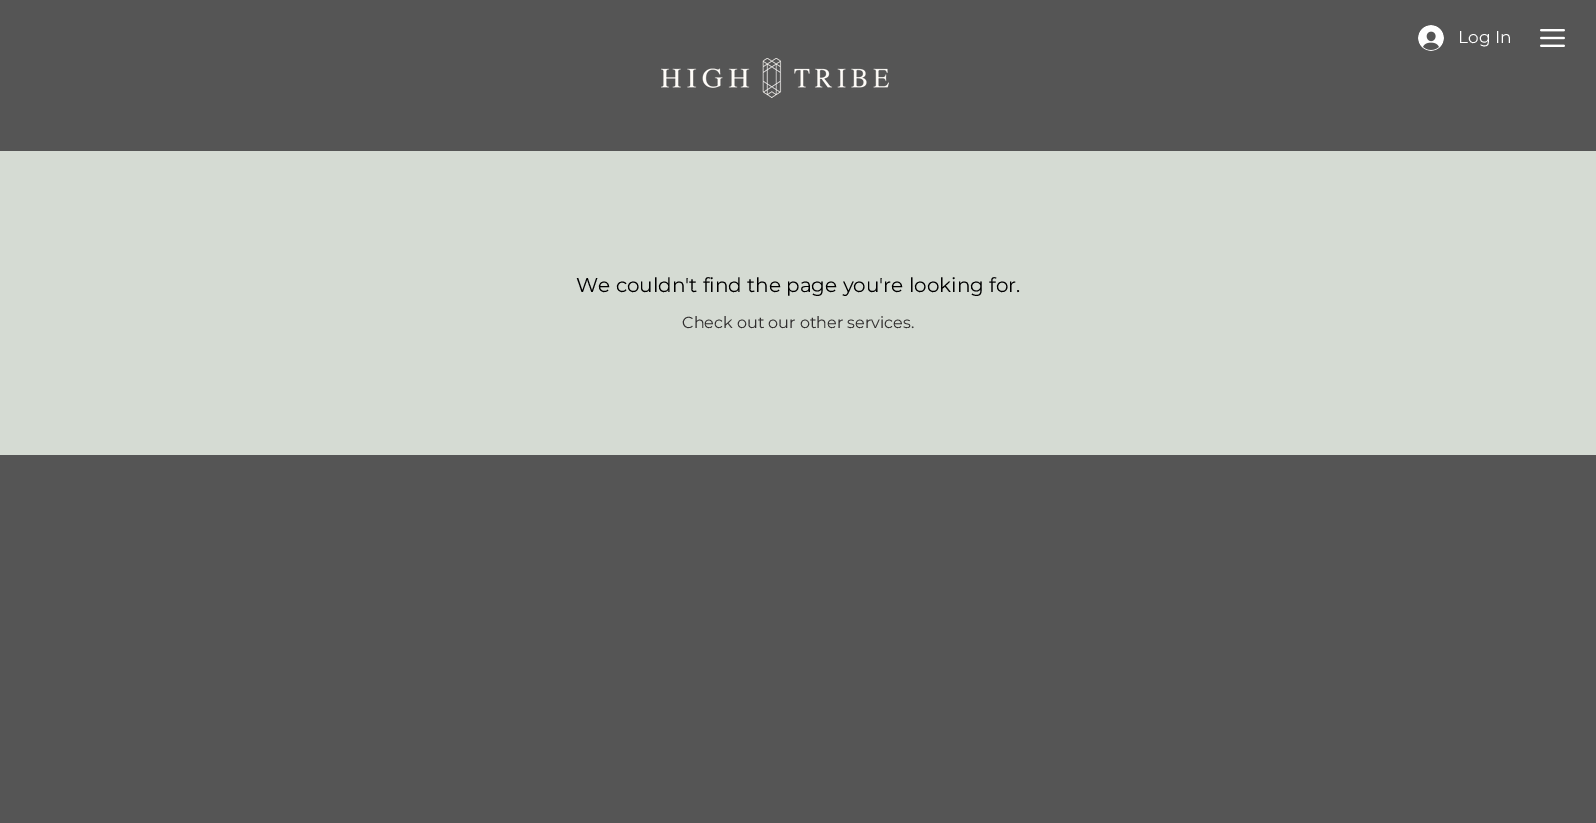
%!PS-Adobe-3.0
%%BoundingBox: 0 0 1596 823
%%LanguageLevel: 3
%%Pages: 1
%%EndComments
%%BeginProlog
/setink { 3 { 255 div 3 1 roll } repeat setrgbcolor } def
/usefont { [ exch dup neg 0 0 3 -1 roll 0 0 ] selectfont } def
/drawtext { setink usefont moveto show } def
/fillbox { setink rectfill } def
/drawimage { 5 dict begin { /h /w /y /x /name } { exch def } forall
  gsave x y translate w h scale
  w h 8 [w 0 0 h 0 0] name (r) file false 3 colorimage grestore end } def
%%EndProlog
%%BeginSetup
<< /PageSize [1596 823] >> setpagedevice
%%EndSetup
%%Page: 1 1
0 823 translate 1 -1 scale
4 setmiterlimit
0 0 1596 823 85 85 85 fillbox
(assets/img1.rgb) 1418 25 26 26 drawimage
(Log In) 1458 43 /Montserrat-Regular 17 255 255 255 drawtext
(assets/img2.rgb) 1540 29 25 18 drawimage
(assets/img3.rgb) 661 58 228 40 drawimage
0 151 1596 304 213 219 211 fillbox
(We couldn't find the page you're looking for.) 576 292 /Montserrat-Regular 20 0 0 0 drawtext
(Check out our other services.) 682 328 /Montserrat-Regular 16 47 45 45 drawtext
showpage
%%EOF
